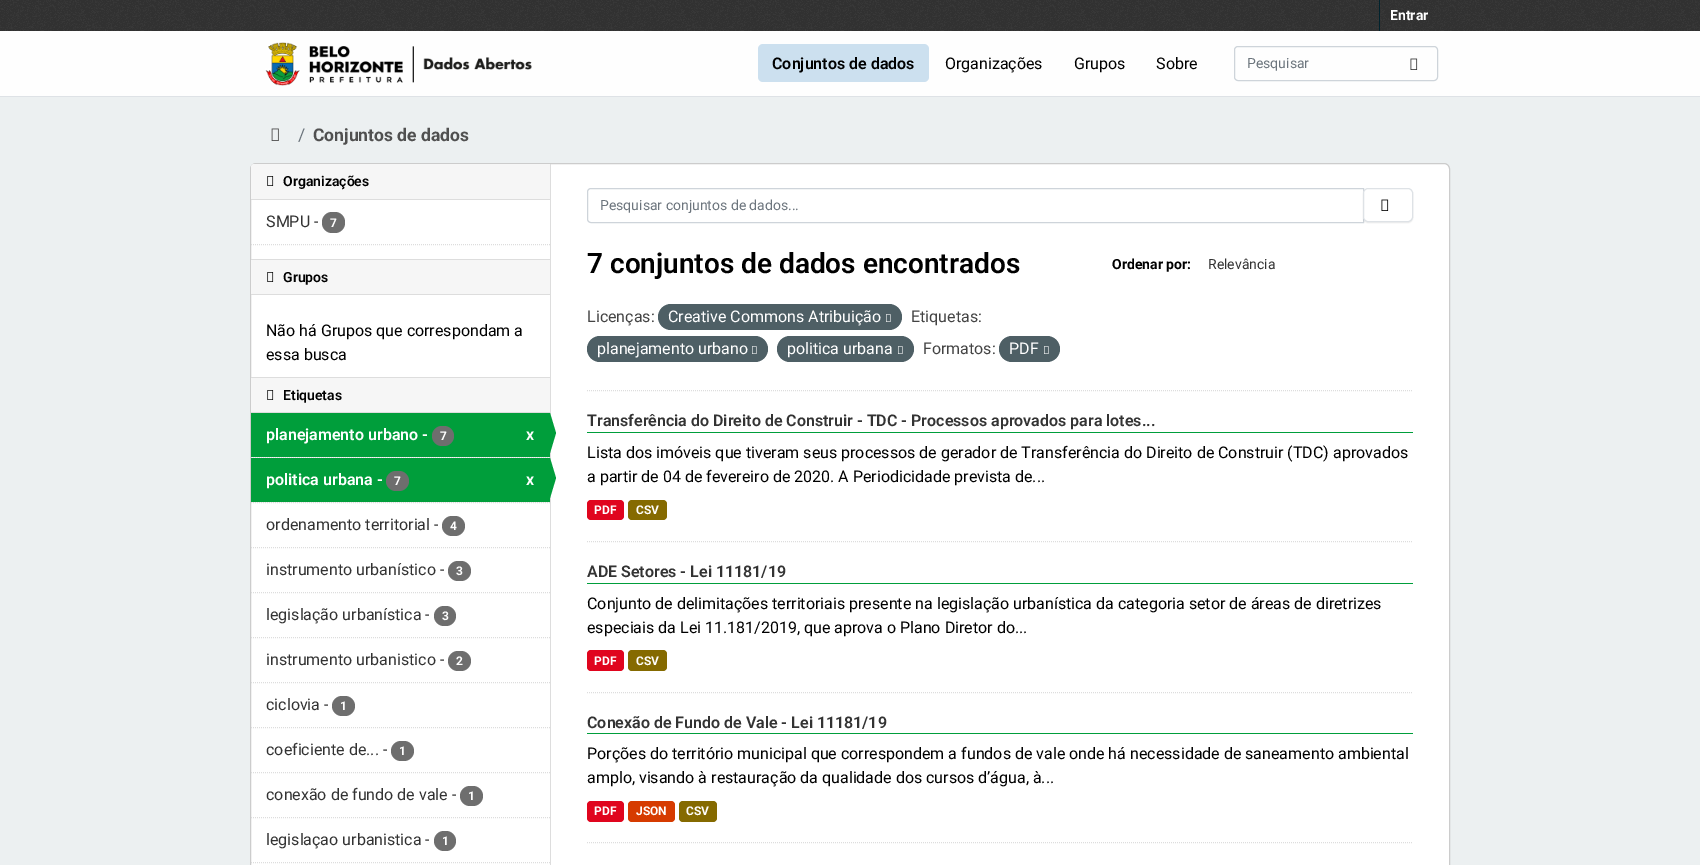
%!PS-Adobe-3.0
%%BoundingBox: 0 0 1700 865
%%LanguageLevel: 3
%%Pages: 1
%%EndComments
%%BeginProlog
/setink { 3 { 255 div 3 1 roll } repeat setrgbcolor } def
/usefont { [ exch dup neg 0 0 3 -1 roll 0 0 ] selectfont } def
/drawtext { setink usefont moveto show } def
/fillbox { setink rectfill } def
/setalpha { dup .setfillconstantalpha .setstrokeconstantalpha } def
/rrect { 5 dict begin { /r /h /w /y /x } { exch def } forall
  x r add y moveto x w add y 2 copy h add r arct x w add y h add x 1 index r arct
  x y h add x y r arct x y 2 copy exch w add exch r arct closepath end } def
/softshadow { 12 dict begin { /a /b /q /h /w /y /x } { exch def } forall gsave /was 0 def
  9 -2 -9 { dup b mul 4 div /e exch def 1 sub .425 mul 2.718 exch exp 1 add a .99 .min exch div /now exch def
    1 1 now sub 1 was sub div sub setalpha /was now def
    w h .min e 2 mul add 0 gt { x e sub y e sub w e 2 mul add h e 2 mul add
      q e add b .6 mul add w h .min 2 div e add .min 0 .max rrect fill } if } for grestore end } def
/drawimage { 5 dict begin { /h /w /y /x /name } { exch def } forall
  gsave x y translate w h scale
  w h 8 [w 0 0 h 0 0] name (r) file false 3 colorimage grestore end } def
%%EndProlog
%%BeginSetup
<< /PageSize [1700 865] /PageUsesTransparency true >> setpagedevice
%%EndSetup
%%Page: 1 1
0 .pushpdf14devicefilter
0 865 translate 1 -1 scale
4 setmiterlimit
0 0 1700 865 236 240 241 fillbox
0 0 1700 31 51 51 51 fillbox
(assets/img1.rgb) 0 0 1700 31 drawimage
1379 0 1 31 0 35 46 fillbox
(Entrar) 1390 20 /Roboto-Bold 14 255 255 255 drawtext
0 31 1700 65 254 254 254 fillbox
0 96 1700 1 222 226 230 fillbox
(assets/img2.rgb) 265 42 267 44 drawimage
204 224 239 setink
758 44 171 38 5 rrect fill
(Conjuntos de dados) 772 69 /Roboto-SemiBold 16 0 0 0 drawtext
(Organizações) 945 69 /Roboto-Regular 16 0 0 0 drawtext
(Grupos) 1074 69 /Roboto-Regular 16 0 0 0 drawtext
(Sobre) 1156 69 /Roboto-Regular 16 0 0 0 drawtext
206 212 218 setink
1234.5 46.5 203 34 3.5 rrect stroke
(Pesquisar) 1247 68 /Roboto-Regular 14 108 117 125 drawtext
(assets/img3.rgb) 1410 58 8 12 drawimage
(assets/img4.rgb) 271 128 8 13 drawimage
(/) 298 141 /Roboto-Regular 17.5 108 117 125 drawtext
(Conjuntos de dados) 313 141 /Roboto-Bold 17.5 80 80 80 drawtext
255 255 255 setink
250.5 163.5 1199 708 5.5 rrect gsave fill grestore
204 204 204 setink
stroke
246 246 246 setink
254 164 moveto 550 164 lineto 550 200 lineto 251 200 lineto 251 167 lineto 251 165.5 252.5 164 254 164 curveto closepath fill
251 199 299 1 221 221 221 fillbox
(assets/img5.rgb) 267 176 7 10 drawimage
(Organizações) 283 186 /Roboto-SemiBold 14 0 0 0 drawtext
(SMPU -) 266 227 /Roboto-Regular 16 51 51 51 drawtext
110 110 110 setink
322 212 23 21 10 rrect fill
(7) 330 227 /Roboto-Bold 12 255 255 255 drawtext
221 221 221 setink
[1 1] 0 setdash
251 244.5 moveto 550 244.5 lineto stroke
251 260 299 34 246 246 246 fillbox
251 259 299 1 221 221 221 fillbox
251 294 299 1 221 221 221 fillbox
(assets/img5.rgb) 267 272 7 10 drawimage
(Grupos) 283 282 /Roboto-SemiBold 14 0 0 0 drawtext
(Não há Grupos que correspondam a) 266 336 /Roboto-Regular 16 0 0 0 drawtext
(essa busca) 266 360 /Roboto-Regular 16 0 0 0 drawtext
251 378 299 34 246 246 246 fillbox
251 377 299 1 221 221 221 fillbox
251 412 299 1 221 221 221 fillbox
(assets/img5.rgb) 267 390 7 10 drawimage
(Etiquetas) 283 400 /Roboto-SemiBold 14 0 0 0 drawtext
252 457 297 1 246 246 246 fillbox
221 221 221 setink
251 457.5 moveto 550 457.5 lineto stroke
251 413 299 44 0 158 59 fillbox
(planejamento urbano -) 266 440 /Roboto-SemiBold 16 255 255 255 drawtext
110 110 110 setink
432 426 22 20 10 rrect fill
(7) 440 440 /Roboto-Bold 12 255 255 255 drawtext
(x) 526 440 /Roboto-SemiBold 16 255 255 255 drawtext
550 164 1 701 221 221 221 fillbox
0 158 59 setink
550 453 moveto 550 413 lineto 556 433 lineto closepath fill
252 502 297 1 246 246 246 fillbox
221 221 221 setink
251 502.5 moveto 550 502.5 lineto stroke
251 458 299 44 0 158 59 fillbox
(politica urbana -) 266 485 /Roboto-SemiBold 16 255 255 255 drawtext
110 110 110 setink
386 471 23 20 10 rrect fill
(7) 394 485 /Roboto-Bold 12 255 255 255 drawtext
(x) 526 485 /Roboto-SemiBold 16 255 255 255 drawtext
0 158 59 setink
550 498 moveto 550 458 lineto 556 478 lineto closepath fill
221 221 221 setink
251 547.5 moveto 550 547.5 lineto stroke
(ordenamento territorial -) 266 530 /Roboto-Regular 16 51 51 51 drawtext
110 110 110 setink
442 516 23 20 10 rrect fill
(4) 450 530 /Roboto-Bold 12 255 255 255 drawtext
221 221 221 setink
251 592.5 moveto 550 592.5 lineto stroke
(instrumento urbanístico -) 266 575 /Roboto-Regular 16 51 51 51 drawtext
110 110 110 setink
448 561 23 20 10 rrect fill
(3) 456 575 /Roboto-Bold 12 255 255 255 drawtext
221 221 221 setink
251 637.5 moveto 550 637.5 lineto stroke
(legislação urbanística -) 266 620 /Roboto-Regular 16 51 51 51 drawtext
110 110 110 setink
434 606 22 20 10 rrect fill
(3) 442 620 /Roboto-Bold 12 255 255 255 drawtext
221 221 221 setink
251 682.5 moveto 550 682.5 lineto stroke
(instrumento urbanistico -) 266 665 /Roboto-Regular 16 51 51 51 drawtext
110 110 110 setink
448 651 23 20 10 rrect fill
(2) 456 665 /Roboto-Bold 12 255 255 255 drawtext
221 221 221 setink
251 727.5 moveto 550 727.5 lineto stroke
(ciclovia -) 266 710 /Roboto-Regular 16 51 51 51 drawtext
110 110 110 setink
332 696 23 20 10 rrect fill
(1) 340 710 /Roboto-Bold 12 255 255 255 drawtext
221 221 221 setink
251 772.5 moveto 550 772.5 lineto stroke
(coeficiente de... -) 266 755 /Roboto-Regular 16 51 51 51 drawtext
110 110 110 setink
391 741 23 20 10 rrect fill
(1) 399 755 /Roboto-Bold 12 255 255 255 drawtext
221 221 221 setink
251 817.5 moveto 550 817.5 lineto stroke
(conexão de fundo de vale -) 266 800 /Roboto-Regular 16 51 51 51 drawtext
110 110 110 setink
460 786 23 20 10 rrect fill
(1) 468 800 /Roboto-Bold 12 255 255 255 drawtext
221 221 221 setink
251 862.5 moveto 550 862.5 lineto stroke
(legislaçao urbanistica -) 266 845 /Roboto-Regular 16 51 51 51 drawtext
110 110 110 setink
434 831 22 20 10 rrect fill
(1) 442 845 /Roboto-Bold 12 255 255 255 drawtext
221 221 221 setink
587 390.5 moveto 1413 390.5 lineto stroke
206 212 218 setink
[] 0 setdash
591 188.5 moveto 1363.5 188.5 lineto 1363.5 222.5 lineto 591 222.5 lineto 589 222.5 587.5 221 587.5 219 curveto 587.5 192 lineto 587.5 190 589 188.5 591 188.5 curveto closepath stroke
(Pesquisar conjuntos de dados...) 600 210 /Roboto-Regular 14 108 117 125 drawtext
0 0 0 setink
1363 189 50 34 5 0.5 0.07 softshadow
255 255 255 setink
1363.5 188.5 49 33 4.5 rrect gsave fill grestore
222 226 230 setink
stroke
(assets/img6.rgb) 1381 199 8 12 drawimage
(7 conjuntos de dados encontrados) 587 273 /Roboto-SemiBold 28 0 0 0 drawtext
(Ordenar por:) 1112 269 /Roboto-Bold 14 0 0 0 drawtext
(Relevância) 1208 269 /Roboto-Regular 14 51 51 51 drawtext
(Licenças:) 587 322 /Roboto-Regular 16 68 68 68 drawtext
78 95 101 setink
658 304 244 26 13 rrect fill
(Creative Commons Atribuição) 668 322 /Roboto-Regular 16 255 255 255 drawtext
(assets/img7.rgb) 886 314 5 8 drawimage
(Etiquetas:) 911 322 /Roboto-Regular 16 68 68 68 drawtext
78 95 101 setink
587 336 181 26 13 rrect fill
(planejamento urbano) 597 354 /Roboto-Regular 16 255 255 255 drawtext
(assets/img7.rgb) 752 346 5 8 drawimage
78 95 101 setink
777 336 137 26 13 rrect fill
(politica urbana) 787 354 /Roboto-Regular 16 255 255 255 drawtext
(assets/img7.rgb) 898 346 5 8 drawimage
(Formatos:) 923 354 /Roboto-Regular 16 68 68 68 drawtext
78 95 101 setink
999 336 61 26 13 rrect fill
(PDF) 1009 354 /Roboto-Regular 16 255 255 255 drawtext
(assets/img7.rgb) 1044 346 5 8 drawimage
221 221 221 setink
[1 1] 0 setdash
587 541.5 moveto 1413 541.5 lineto stroke
587 432 826 1 0 158 59 fillbox
(Transferência do Direito de Construir - TDC - Processos aprovados para lotes...) 587 426 /Roboto-SemiBold 16 51 51 51 drawtext
(Lista dos imóveis que tiveram seus processos de gerador de Transferência do Direito de Construir \(TDC\) aprovados) 587 458 /Roboto-Regular 16 0 0 0 drawtext
(a partir de 04 de fevereiro de 2020. A Periodicidade prevista de...) 587 482 /Roboto-Regular 16 0 0 0 drawtext
224 5 30 setink
587 500 37 20 4 rrect fill
(PDF) 594 514 /Roboto-Bold 12 255 255 255 drawtext
133 106 0 setink
628 500 39 20 4 rrect fill
(CSV) 636 514 /Roboto-Bold 12 255 255 255 drawtext
221 221 221 setink
587 692.5 moveto 1413 692.5 lineto stroke
587 583 826 1 0 158 59 fillbox
(ADE Setores - Lei 11181/19) 587 577 /Roboto-SemiBold 16 51 51 51 drawtext
(Conjunto de delimitações territoriais presente na legislação urbanística da categoria setor de áreas de diretrizes) 587 609 /Roboto-Regular 16 0 0 0 drawtext
(especiais da Lei 11.181/2019, que aprova o Plano Diretor do...) 587 633 /Roboto-Regular 16 0 0 0 drawtext
224 5 30 setink
587 650 37 21 4 rrect fill
(PDF) 594 665 /Roboto-Bold 12 255 255 255 drawtext
133 106 0 setink
628 650 39 21 4 rrect fill
(CSV) 636 665 /Roboto-Bold 12 255 255 255 drawtext
221 221 221 setink
587 842.5 moveto 1413 842.5 lineto stroke
587 733 826 1 0 158 59 fillbox
(Conexão de Fundo de Vale - Lei 11181/19) 587 728 /Roboto-SemiBold 16 51 51 51 drawtext
(Porções do território municipal que correspondem a fundos de vale onde há necessidade de saneamento ambiental) 587 759 /Roboto-Regular 16 0 0 0 drawtext
(amplo, visando à restauração da qualidade dos cursos d’água, à...) 587 783 /Roboto-Regular 16 0 0 0 drawtext
224 5 30 setink
587 801 37 21 4 rrect fill
(PDF) 594 815 /Roboto-Bold 12 255 255 255 drawtext
214 59 0 setink
628 801 47 21 4 rrect fill
(JSON) 636 815 /Roboto-Bold 12 255 255 255 drawtext
133 106 0 setink
679 801 38 21 4 rrect fill
(CSV) 686 815 /Roboto-Bold 12 255 255 255 drawtext
.poppdf14devicefilter showpage
%%EOF
